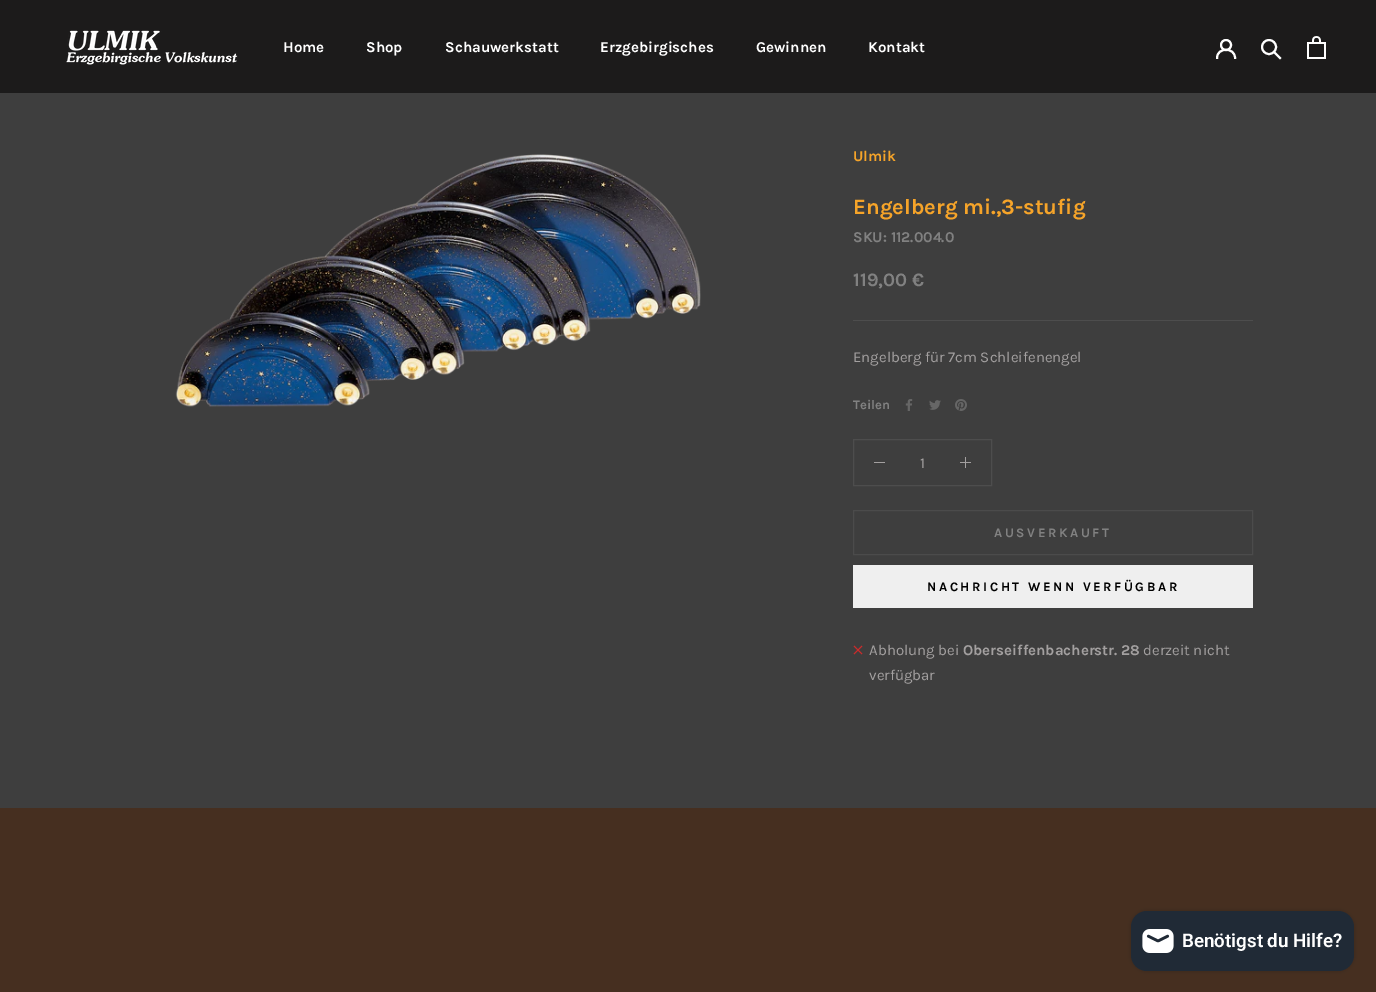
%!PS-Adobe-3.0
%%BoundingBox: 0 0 1376 992
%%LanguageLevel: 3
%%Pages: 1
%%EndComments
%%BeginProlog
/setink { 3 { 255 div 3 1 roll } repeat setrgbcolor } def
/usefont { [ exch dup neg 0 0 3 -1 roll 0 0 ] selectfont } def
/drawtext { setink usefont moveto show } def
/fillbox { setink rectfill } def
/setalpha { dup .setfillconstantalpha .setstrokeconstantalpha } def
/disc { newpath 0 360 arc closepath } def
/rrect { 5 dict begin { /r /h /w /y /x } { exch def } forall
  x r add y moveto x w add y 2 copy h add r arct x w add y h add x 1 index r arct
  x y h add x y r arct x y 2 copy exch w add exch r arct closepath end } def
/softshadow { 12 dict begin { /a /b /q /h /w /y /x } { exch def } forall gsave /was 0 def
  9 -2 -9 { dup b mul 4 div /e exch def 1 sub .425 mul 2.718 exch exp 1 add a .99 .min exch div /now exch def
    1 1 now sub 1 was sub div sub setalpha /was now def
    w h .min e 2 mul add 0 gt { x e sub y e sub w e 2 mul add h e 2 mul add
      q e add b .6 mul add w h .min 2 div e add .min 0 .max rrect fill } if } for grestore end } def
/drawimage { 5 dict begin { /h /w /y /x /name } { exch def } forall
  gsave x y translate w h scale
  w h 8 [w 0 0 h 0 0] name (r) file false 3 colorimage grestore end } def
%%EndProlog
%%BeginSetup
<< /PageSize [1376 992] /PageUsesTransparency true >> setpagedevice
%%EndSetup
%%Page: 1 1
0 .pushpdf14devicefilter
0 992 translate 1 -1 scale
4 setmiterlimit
0 0 1376 992 62 62 62 fillbox
0 0 1376 93 28 27 27 fillbox
(assets/img1.rgb) 66 30 172 35 drawimage
(Home) 283 52 /Karla-Bold 15 255 255 255 drawtext
(Shop) 366 52 /Karla-Bold 15 255 255 255 drawtext
(Schauwerkstatt) 445 52 /Karla-Bold 15 255 255 255 drawtext
(Erzgebirgisches) 600 52 /Karla-Bold 15 255 255 255 drawtext
(Gewinnen) 756 52 /Karla-Bold 15 255 255 255 drawtext
(Kontakt) 868 52 /Karla-Bold 15 255 255 255 drawtext
2 setlinewidth
2 setlinecap
1217 58 moveto 1217 47 1235 47 1235 58 curveto stroke
0 setlinecap
1226 45 5 disc stroke
2 setlinecap
1280 58 moveto 1274.5 52.5 lineto stroke
0 setlinecap
1269 47 7 disc stroke
(assets/img2.rgb) 1307 36 19 23 drawimage
(assets/img3.rgb) 175 154 526 253 drawimage
853 320 400 1 77 77 77 fillbox
(Ulmik) 853 161 /Karla-Bold 15 246 164 41 drawtext
(Engelberg mi.,3-stufig) 853 214 /Karla-Bold 22 246 164 41 drawtext
(SKU: 112.004.0) 853 242 /Karla-Bold 15 129 129 129 drawtext
(119,00 €) 853 286 /Karla-Bold 19 129 129 129 drawtext
(Engelberg für 7cm Schleifenengel) 853 362 /Karla-Regular 15 163 160 160 drawtext
(Teilen) 853 409 /Karla-Bold 13 129 129 129 drawtext
(assets/img4.rgb) 905 399 8 12 drawimage
(assets/img5.rgb) 929 400 12 10 drawimage
(assets/img6.rgb) 955 399 12 12 drawimage
77 77 77 setink
1 setlinewidth
853.5 439.5 138 46 rectstroke
874 462 11 1 163 160 160 fillbox
(1) 920 468 /Karla-Regular 15 163 160 160 drawtext
965 457 1 11 163 160 160 fillbox
960 462 11 1 163 160 160 fillbox
75 75 75 setink
853.5 510.5 399 44 rectstroke
/Karla-Bold 13 usefont
129 129 129 setink
994 537 moveto 2.6 0 (AUSVERKAUFT) ashow
853 565 400 43 239 239 239 fillbox
0 0 0 setink
927 591 moveto 2.6 0 (NACHRICHT WENN VERFÜGBAR) ashow
203 43 43 setink
0.9 setlinewidth
862 654 moveto 854 646 lineto 862 646 moveto 854 654 lineto stroke
(Abholung bei) 869 655 /Karla-Regular 15 163 160 160 drawtext
(Oberseiffenbacherstr. 28) 963 655 /Karla-Bold 15 163 160 160 drawtext
(derzeit nicht) 1143 655 /Karla-Regular 15 163 160 160 drawtext
(verfügbar) 869 680 /Karla-Regular 15 163 160 160 drawtext
0 808 1376 184 70 47 32 fillbox
0 0 0 setink
1131 911 223 60 16 2.5 0.15 softshadow
32 42 54 setink
1131 911 223 60 16 rrect fill
(assets/img7.rgb) 1142 929 32 24 drawimage
(Benötigst du Hilfe?) 1182 947 /Roboto-SemiBold 18.75 255 255 255 drawtext
.poppdf14devicefilter showpage
%%EOF
